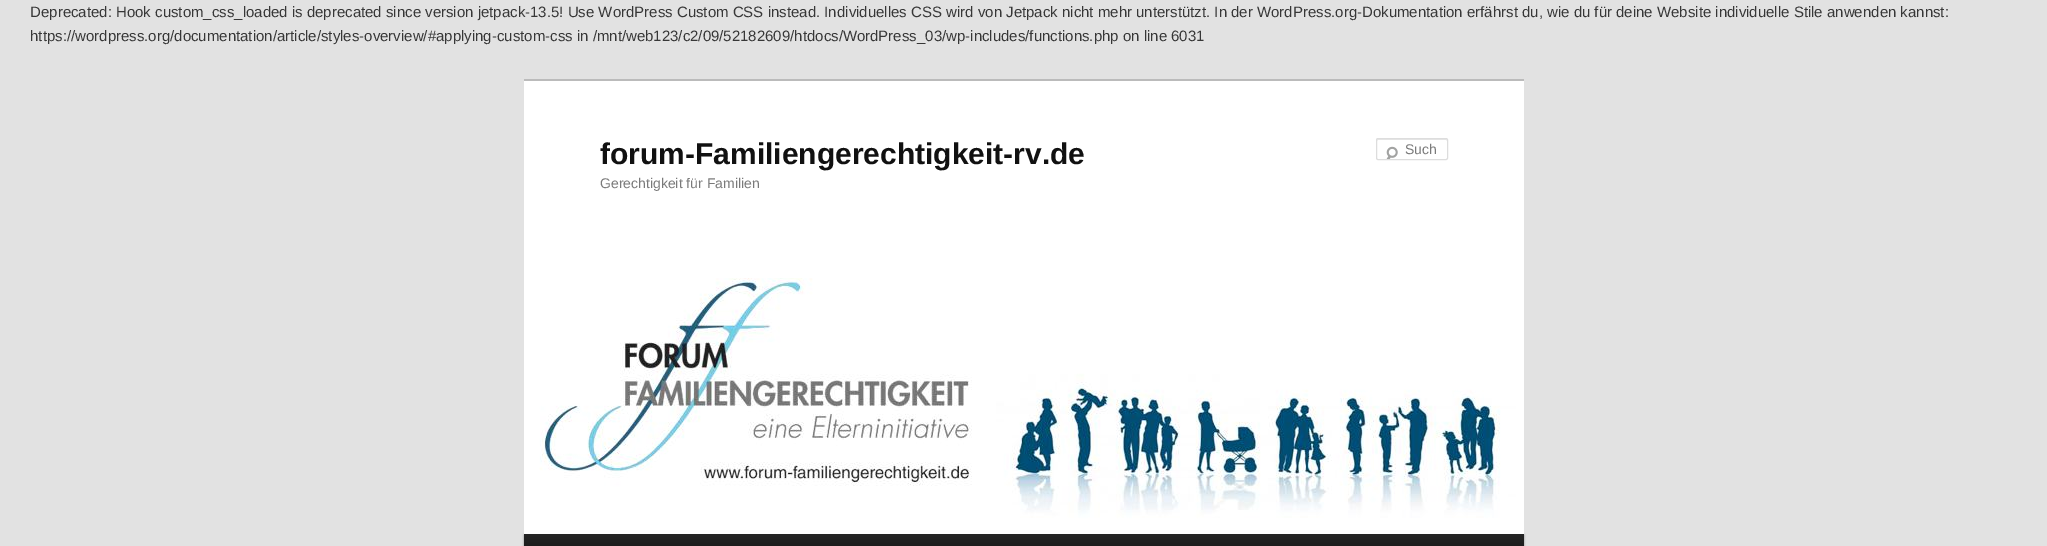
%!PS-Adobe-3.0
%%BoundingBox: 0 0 2047 546
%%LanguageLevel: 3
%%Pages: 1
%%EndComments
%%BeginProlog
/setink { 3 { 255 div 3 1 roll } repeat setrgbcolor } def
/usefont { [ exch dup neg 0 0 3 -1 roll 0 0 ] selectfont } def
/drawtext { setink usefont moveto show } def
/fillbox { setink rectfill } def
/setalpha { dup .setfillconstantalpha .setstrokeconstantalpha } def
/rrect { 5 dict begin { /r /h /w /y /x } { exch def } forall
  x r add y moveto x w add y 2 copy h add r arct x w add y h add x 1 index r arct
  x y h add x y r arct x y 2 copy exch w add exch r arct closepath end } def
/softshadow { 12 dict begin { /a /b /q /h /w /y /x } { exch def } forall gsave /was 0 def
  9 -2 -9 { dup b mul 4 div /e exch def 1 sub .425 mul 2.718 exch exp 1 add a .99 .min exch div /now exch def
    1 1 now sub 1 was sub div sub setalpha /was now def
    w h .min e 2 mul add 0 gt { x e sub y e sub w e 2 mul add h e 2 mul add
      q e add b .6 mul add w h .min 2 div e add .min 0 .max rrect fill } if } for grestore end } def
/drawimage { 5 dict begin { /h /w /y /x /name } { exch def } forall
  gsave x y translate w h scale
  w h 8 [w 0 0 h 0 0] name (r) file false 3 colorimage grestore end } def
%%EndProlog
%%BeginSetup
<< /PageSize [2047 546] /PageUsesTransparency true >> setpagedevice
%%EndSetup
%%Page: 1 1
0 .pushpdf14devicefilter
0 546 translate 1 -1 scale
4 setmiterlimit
0 0 2047 546 226 226 226 fillbox
(Deprecated: Hook custom_css_loaded is deprecated since version jetpack-13.5! Use WordPress Custom CSS instead. Individuelles CSS wird von Jetpack nicht mehr unterstützt. In der WordPress.org-Dokumentation erfährst du, wie du für deine Website individuelle Stile anwenden kannst:) 30 17 /LiberationSans-Regular 15 55 55 55 drawtext
(https://wordpress.org/documentation/article/styles-overview/#applying-custom-css in /mnt/web123/c2/09/52182609/htdocs/WordPress_03/wp-includes/functions.php on line 6031) 30 41 /LiberationSans-Regular 15 55 55 55 drawtext
524 81 1000 197 255 255 255 fillbox
524 79 1000 2 187 187 187 fillbox
(forum-Familiengerechtigkeit-rv.de) 600 164 /LiberationSans-Bold 30 17 17 17 drawtext
(Gerechtigkeit für Familien) 600 188 /LiberationSans-Regular 14 122 122 122 drawtext
(assets/img1.rgb) 1386 146 12 13 drawimage
230 230 230 setink
1378 140 moveto 1446 140 lineto 1447 140 1447 140 1447 141 curveto 1447 136 1438 139 1435 139 curveto 1378 139 lineto 1377 139 1377 140 1377 141 curveto 1377 140 1377 140 1378 140 curveto closepath fill
221 221 221 setink
1376.5 138.5 71 21 1.5 rrect stroke
(Such) 1405 154 /LiberationSans-Regular 14 122 122 122 drawtext
0 0 0 setink
524 535 1000 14 0 1 0.4 softshadow
(assets/img2.rgb) 524 278 1000 256 drawimage
gsave 524 534 moveto 1524 534 lineto 1524 546 lineto 524 546 lineto closepath clip newpath
<< /ShadingType 2 /ColorSpace /DeviceRGB /Coords [1024 534 1024 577] /Extend [true true] /Function << /FunctionType 2 /Domain [0 1] /C0 [0.145 0.145 0.145] /C1 [0.039 0.039 0.039] /N 1 >> >> shfill grestore
.poppdf14devicefilter showpage
%%EOF
